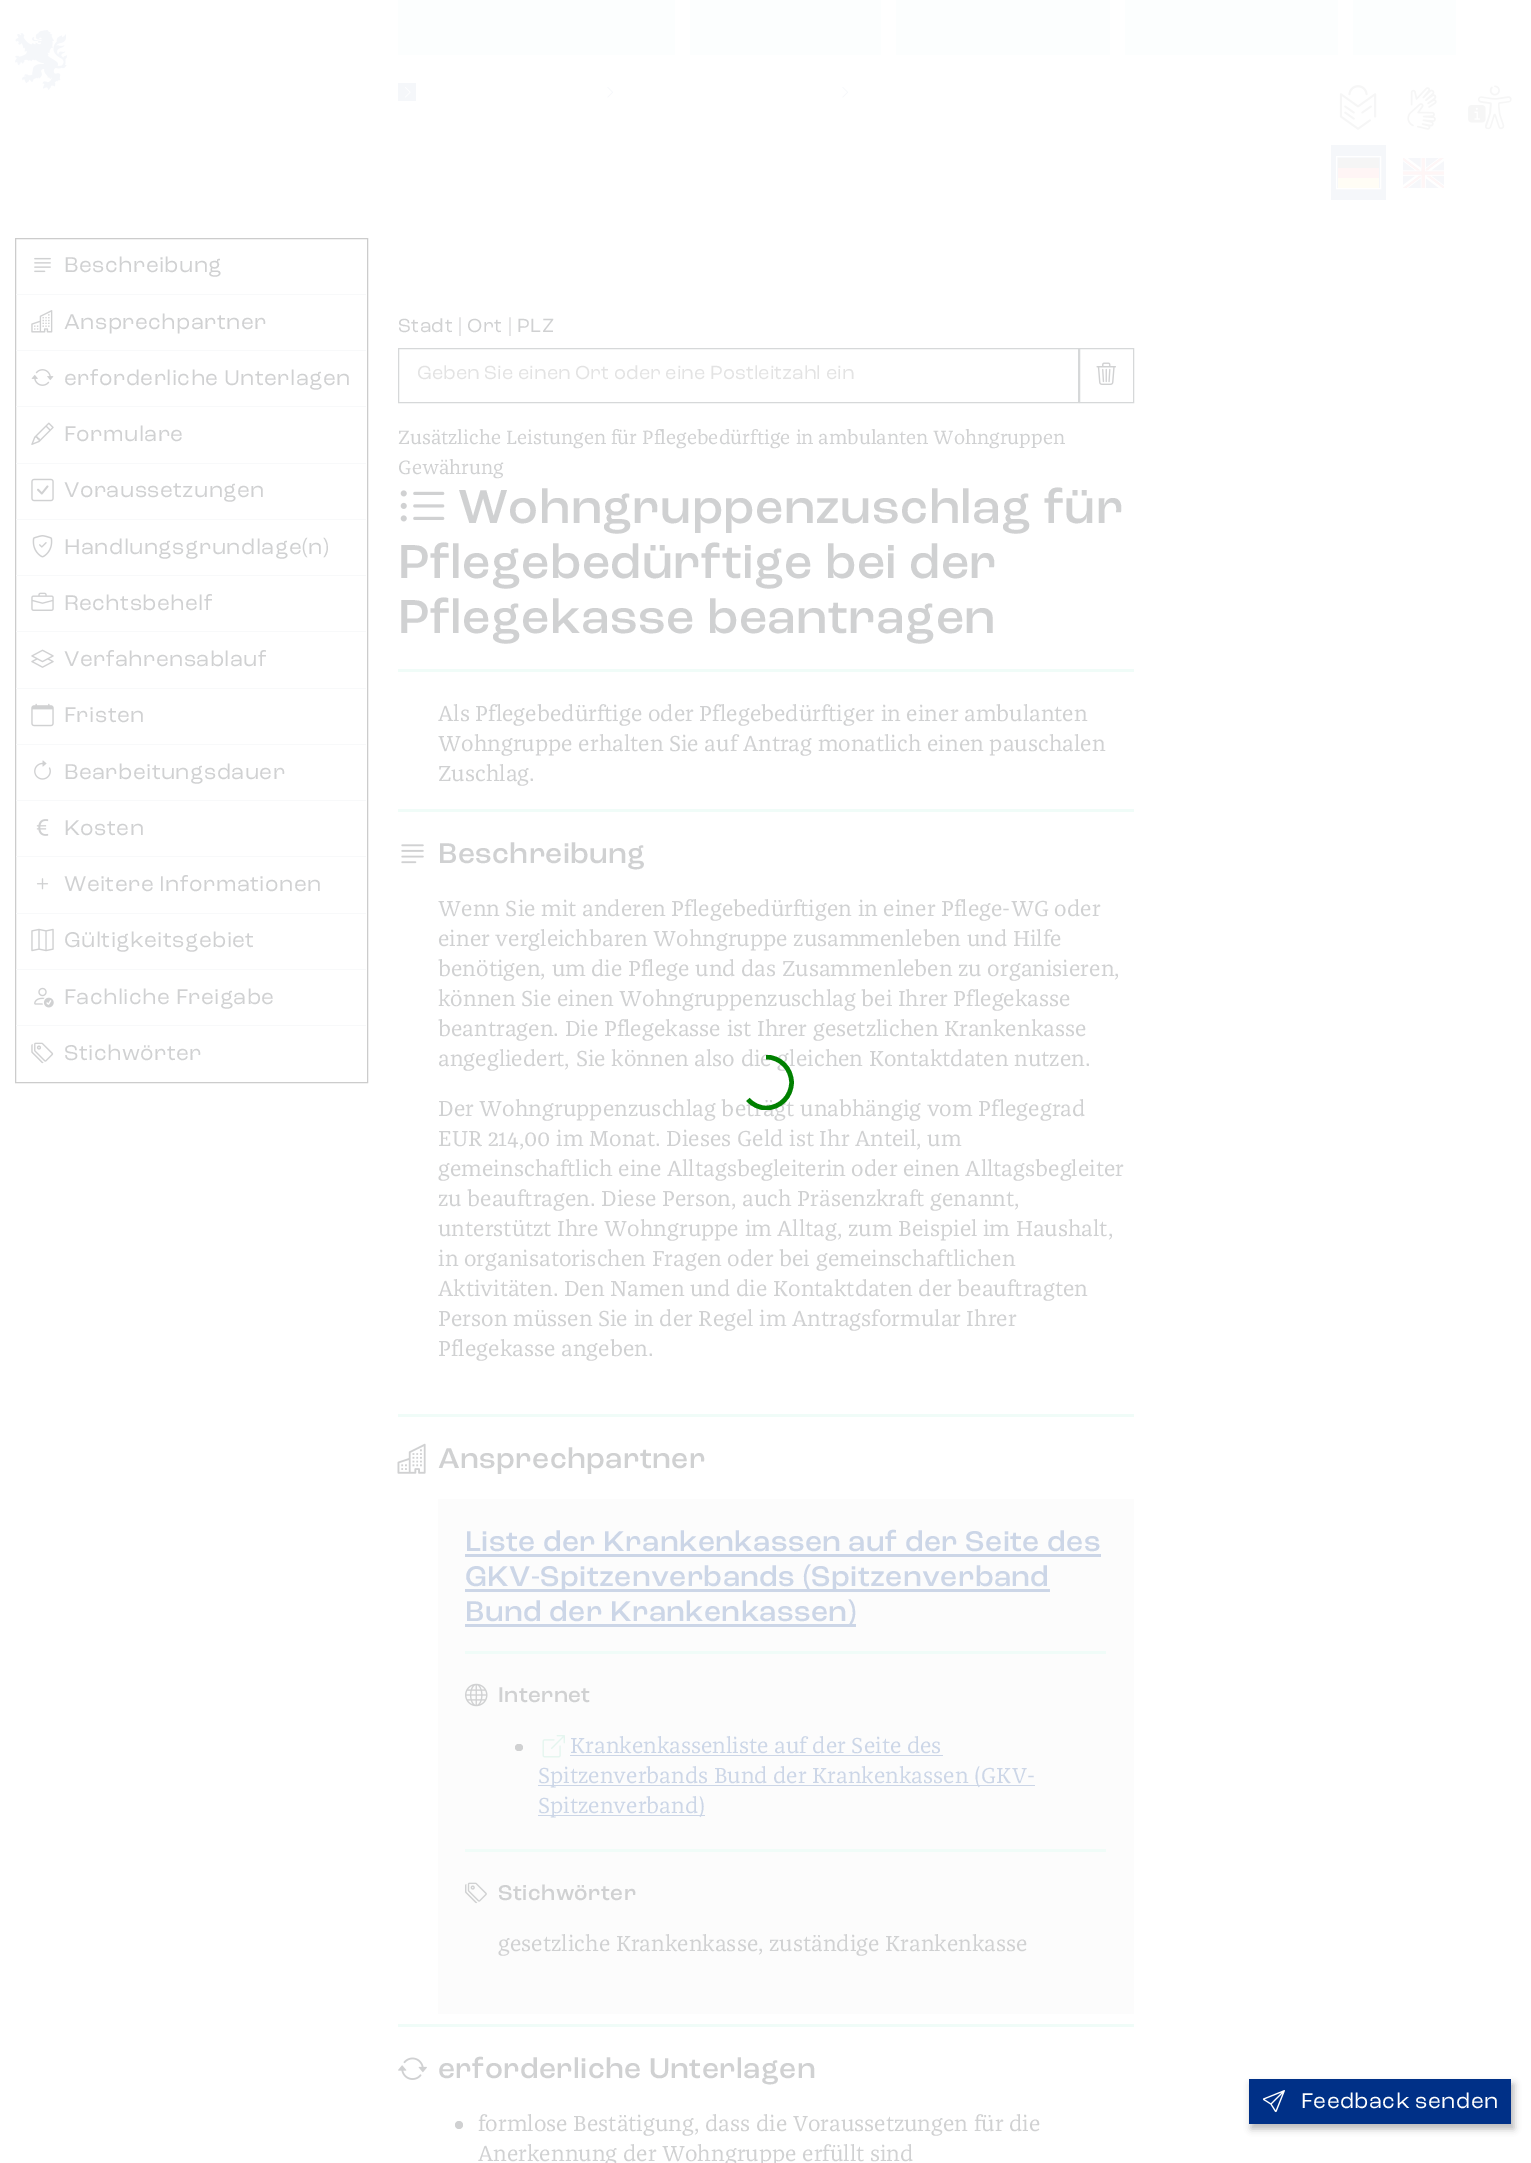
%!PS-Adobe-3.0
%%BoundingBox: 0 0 1531 2163
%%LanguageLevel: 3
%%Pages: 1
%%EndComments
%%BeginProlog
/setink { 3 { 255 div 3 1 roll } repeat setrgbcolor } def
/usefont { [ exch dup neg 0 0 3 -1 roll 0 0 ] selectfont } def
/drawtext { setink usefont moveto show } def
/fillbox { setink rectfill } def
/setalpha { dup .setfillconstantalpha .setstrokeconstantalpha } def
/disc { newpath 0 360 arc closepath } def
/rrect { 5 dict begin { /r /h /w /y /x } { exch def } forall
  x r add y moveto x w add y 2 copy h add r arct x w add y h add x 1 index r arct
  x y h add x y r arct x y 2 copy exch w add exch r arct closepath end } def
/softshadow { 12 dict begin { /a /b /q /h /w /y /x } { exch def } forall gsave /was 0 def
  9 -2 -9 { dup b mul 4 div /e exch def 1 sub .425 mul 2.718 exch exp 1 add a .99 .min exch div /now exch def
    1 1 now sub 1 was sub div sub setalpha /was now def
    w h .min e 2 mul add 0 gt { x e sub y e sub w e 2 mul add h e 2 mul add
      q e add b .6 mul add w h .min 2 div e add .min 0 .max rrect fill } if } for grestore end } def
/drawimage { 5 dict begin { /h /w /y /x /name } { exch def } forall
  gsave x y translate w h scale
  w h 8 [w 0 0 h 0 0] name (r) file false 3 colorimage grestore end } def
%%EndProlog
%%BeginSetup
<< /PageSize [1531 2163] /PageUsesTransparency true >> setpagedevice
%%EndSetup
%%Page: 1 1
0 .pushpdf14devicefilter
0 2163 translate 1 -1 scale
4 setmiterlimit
0 0 1531 2163 255 255 255 fillbox
(assets/img1.rgb) 15 30 52 60 drawimage
398 0 277 55 252 254 254 fillbox
690 0 191 55 252 254 254 fillbox
896 0 214 55 252 254 254 fillbox
1125 0 213 55 252 254 254 fillbox
1353 0 103 55 252 254 254 fillbox
398 83 18 18 245 247 250 fillbox
(assets/img2.rgb) 404 87 7 11 drawimage
(assets/img3.rgb) 607 87 7 11 drawimage
(assets/img3.rgb) 842 87 7 11 drawimage
(assets/img4.rgb) 1339 85 38 45 drawimage
(assets/img5.rgb) 1407 87 30 43 drawimage
(assets/img6.rgb) 1468 85 44 45 drawimage
1331 145 55 55 245 247 250 fillbox
1338 158 41 10 245 245 245 fillbox
1338 168 41 10 255 245 245 fillbox
1338 178 41 10 255 253 245 fillbox
255 255 255 setink
1336.5 156.5 44 32 rectstroke
(assets/img7.rgb) 1403 158 41 30 drawimage
204 204 204 setink
15.5 238.5 352 844 rectstroke
(assets/img8.rgb) 34 257 17 16 drawimage
/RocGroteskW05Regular-Regular 22.5 usefont
208 209 210 setink
64 272 moveto 0.4 0 (Beschreibung) ashow
16 294 350 1 248 249 250 fillbox
(assets/img9.rgb) 31 310 22 23 drawimage
208 209 210 setink
64 329 moveto 0.4 0 (Ansprechpartner) ashow
16 350 350 1 248 249 250 fillbox
(assets/img10.rgb) 31 369 23 17 drawimage
208 209 210 setink
64 385 moveto 0.4 0 (erforderliche Unterlagen) ashow
16 406 350 1 248 249 250 fillbox
(assets/img11.rgb) 31 422 23 23 drawimage
208 209 210 setink
64 441 moveto 0.4 0 (Formulare) ashow
16 463 350 1 248 249 250 fillbox
(assets/img12.rgb) 31 478 23 24 drawimage
208 209 210 setink
64 497 moveto 0.4 0 (Voraussetzungen) ashow
16 519 350 1 248 249 250 fillbox
(assets/img13.rgb) 32 535 21 23 drawimage
208 209 210 setink
64 554 moveto 0.4 0 (Handlungsgrundlage\(n\)) ashow
16 575 350 1 248 249 250 fillbox
(assets/img14.rgb) 31 592 23 19 drawimage
208 209 210 setink
64 610 moveto 0.4 0 (Rechtsbehelf) ashow
16 631 350 1 248 249 250 fillbox
(assets/img15.rgb) 31 649 23 19 drawimage
208 209 210 setink
64 666 moveto 0.4 0 (Verfahrensablauf) ashow
16 688 350 1 248 249 250 fillbox
(assets/img16.rgb) 31 703 23 24 drawimage
208 209 210 setink
64 722 moveto 0.4 0 (Fristen) ashow
16 744 350 1 248 249 250 fillbox
(assets/img17.rgb) 34 760 17 20 drawimage
208 209 210 setink
64 779 moveto 0.4 0 (Bearbeitungsdauer) ashow
16 800 350 1 248 249 250 fillbox
(assets/img18.rgb) 36 819 13 17 drawimage
208 209 210 setink
64 835 moveto 0.4 0 (Kosten) ashow
16 856 350 1 248 249 250 fillbox
(assets/img19.rgb) 36 878 13 12 drawimage
208 209 210 setink
64 891 moveto 0.4 0 (Weitere Informationen) ashow
16 913 350 1 248 249 250 fillbox
(assets/img20.rgb) 31 928 23 24 drawimage
208 209 210 setink
64 947 moveto 0.4 0 (Gültigkeitsgebiet) ashow
16 969 350 1 248 249 250 fillbox
(assets/img21.rgb) 34 987 20 21 drawimage
208 209 210 setink
64 1004 moveto 0.4 0 (Fachliche Freigabe) ashow
16 1025 350 1 248 249 250 fillbox
(assets/img22.rgb) 31 1042 23 22 drawimage
208 209 210 setink
64 1060 moveto 0.4 0 (Stichwörter) ashow
/RocGroteskW05Regular-Regular 20 usefont
398 332 moveto 0.4 0 (Stadt | Ort | PLZ) ashow
214 216 217 setink
398.5 348.5 680 54 rectstroke
(Geben Sie einen Ort oder eine Postleitzahl ein) 417 379 /RocGroteskW05Regular-Regular 20 227 227 227 drawtext
214 216 217 setink
1079.5 348.5 54 54 rectstroke
(assets/img23.rgb) 1096 362 20 23 drawimage
(Zusätzliche Leistungen für Pflegebedürftige in ambulanten Wohngruppen) 398 444 /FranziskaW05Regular-Regular 20 208 209 210 drawtext
(Gewährung) 398 474 /FranziskaW05Regular-Regular 20 208 209 210 drawtext
(assets/img24.rgb) 400 490 45 32 drawimage
/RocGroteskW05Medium-Medium 50 usefont
458 523 moveto 0.4 0 (Wohngruppenzuschlag für) ashow
398 578 moveto 0.4 0 (Pflegebedürftige bei der) ashow
398 633 moveto 0.4 0 (Pflegekasse beantragen) ashow
398 669 736 3 240 252 248 fillbox
(Als Pflegebedürftige oder Pflegebedürftiger in einer ambulanten) 438 721 /FranziskaW05Regular-Regular 22.5 208 209 210 drawtext
(Wohngruppe erhalten Sie auf Antrag monatlich einen pauschalen) 438 751 /FranziskaW05Regular-Regular 22.5 208 209 210 drawtext
(Zuschlag.) 438 781 /FranziskaW05Regular-Regular 22.5 208 209 210 drawtext
398 809 736 3 240 252 248 fillbox
(assets/img25.rgb) 401 844 23 20 drawimage
/RocGroteskW05Medium-Medium 30 usefont
208 209 210 setink
438 863 moveto 0.4 0 (Beschreibung) ashow
(Wenn Sie mit anderen Pflegebedürftigen in einer Pflege-WG oder) 438 916 /FranziskaW05Regular-Regular 22.5 208 209 210 drawtext
(einer vergleichbaren Wohngruppe zusammenleben und Hilfe) 438 946 /FranziskaW05Regular-Regular 22.5 208 209 210 drawtext
(benötigen, um die Pflege und das Zusammenleben zu organisieren,) 438 976 /FranziskaW05Regular-Regular 22.5 208 209 210 drawtext
(können Sie einen Wohngruppenzuschlag bei Ihrer Pflegekasse) 438 1006 /FranziskaW05Regular-Regular 22.5 208 209 210 drawtext
(beantragen. Die Pflegekasse ist Ihrer gesetzlichen Krankenkasse) 438 1036 /FranziskaW05Regular-Regular 22.5 208 209 210 drawtext
(angegliedert, Sie können also die gleichen Kontaktdaten nutzen.) 438 1066 /FranziskaW05Regular-Regular 22.5 208 209 210 drawtext
(Der Wohngruppenzuschlag beträgt unabhängig vom Pflegegrad) 438 1116 /FranziskaW05Regular-Regular 22.5 208 209 210 drawtext
(EUR 214,00 im Monat. Dieses Geld ist Ihr Anteil, um) 438 1146 /FranziskaW05Regular-Regular 22.5 208 209 210 drawtext
(gemeinschaftlich eine Alltagsbegleiterin oder einen Alltagsbegleiter) 438 1176 /FranziskaW05Regular-Regular 22.5 208 209 210 drawtext
(zu beauftragen. Diese Person, auch Präsenzkraft genannt,) 438 1206 /FranziskaW05Regular-Regular 22.5 208 209 210 drawtext
(unterstützt Ihre Wohngruppe im Alltag, zum Beispiel im Haushalt,) 438 1236 /FranziskaW05Regular-Regular 22.5 208 209 210 drawtext
(in organisatorischen Fragen oder bei gemeinschaftlichen) 438 1266 /FranziskaW05Regular-Regular 22.5 208 209 210 drawtext
(Aktivitäten. Den Namen und die Kontaktdaten der beauftragten) 438 1296 /FranziskaW05Regular-Regular 22.5 208 209 210 drawtext
(Person müssen Sie in der Regel im Antragsformular Ihrer) 438 1326 /FranziskaW05Regular-Regular 22.5 208 209 210 drawtext
(Pflegekasse angeben.) 438 1356 /FranziskaW05Regular-Regular 22.5 208 209 210 drawtext
398 1414 736 3 240 252 248 fillbox
(assets/img26.rgb) 397 1443 29 31 drawimage
/RocGroteskW05Medium-Medium 30 usefont
208 209 210 setink
438 1468 moveto 0.4 0 (Ansprechpartner) ashow
438 1499 696 515 252 252 252 fillbox
204 214 231 setink
465 1551 moveto 0.4 0 (Liste der Krankenkassen auf der Seite des) ashow
465 1554 636 3 204 214 231 fillbox
465 1589 585 3 204 214 231 fillbox
465 1586 moveto 0.4 0 (GKV-Spitzenverbands \(Spitzenverband) ashow
465 1624 391 3 204 214 231 fillbox
465 1621 moveto 0.4 0 (Bund der Krankenkassen\)) ashow
465 1651 641 3 240 252 248 fillbox
(assets/img27.rgb) 465 1683 23 24 drawimage
/RocGroteskW05Medium-Medium 22.5 usefont
208 209 210 setink
498 1702 moveto 0.4 0 (Internet) ashow
515 1744 8 7 3.5 rrect fill
(assets/img28.rgb) 542 1735 23 23 drawimage
(Krankenkassenliste auf der Seite des) 570 1753 /FranziskaW05Regular-Regular 22.5 204 214 231 drawtext
570 1755 373 1 204 214 231 fillbox
538 1785 497 1 204 214 231 fillbox
(Spitzenverbands Bund der Krankenkassen \(GKV-) 538 1783 /FranziskaW05Regular-Regular 22.5 204 214 231 drawtext
538 1815 167 1 204 214 231 fillbox
(Spitzenverband\)) 538 1813 /FranziskaW05Regular-Regular 22.5 204 214 231 drawtext
465 1849 641 3 240 252 248 fillbox
(assets/img29.rgb) 465 1882 22 22 drawimage
/RocGroteskW05Medium-Medium 22.5 usefont
208 209 210 setink
498 1900 moveto 0.4 0 (Stichwörter) ashow
(gesetzliche Krankenkasse, zuständige Krankenkasse) 498 1951 /FranziskaW05Regular-Regular 22.5 208 209 210 drawtext
398 2024 736 3 240 252 248 fillbox
(assets/img30.rgb) 398 2057 29 23 drawimage
/RocGroteskW05Medium-Medium 30 usefont
208 209 210 setink
438 2078 moveto 0.4 0 (erforderliche Unterlagen) ashow
459 2125 4 disc fill
(formlose Bestätigung, dass die Voraussetzungen für die) 478 2131 /FranziskaW05Regular-Regular 22.5 208 209 210 drawtext
(Anerkennung der Wohngruppe erfüllt sind) 478 2161 /FranziskaW05Regular-Regular 22.5 208 209 210 drawtext
gsave
739 1055 55 55 rectclip
0 128 0 setink
4.5 setlinewidth
766 1057 moveto 780 1057 791.5 1068.5 791.5 1082.5 curveto 791.5 1096.5 780 1108 766 1108 curveto 759 1108 752.5 1104.5 748 1099.5 curveto stroke
grestore
22 25 31 setink
1251 2084 263 45 0 3.5 0.3 softshadow
1249 2079 262 45 0 48 135 fillbox
(assets/img31.rgb) 1262 2090 23 23 drawimage
/RocGroteskW05Regular-Regular 22.5 usefont
255 255 255 setink
1301 2108 moveto 0.4 0 (Feedback senden) ashow
.poppdf14devicefilter showpage
%%EOF
